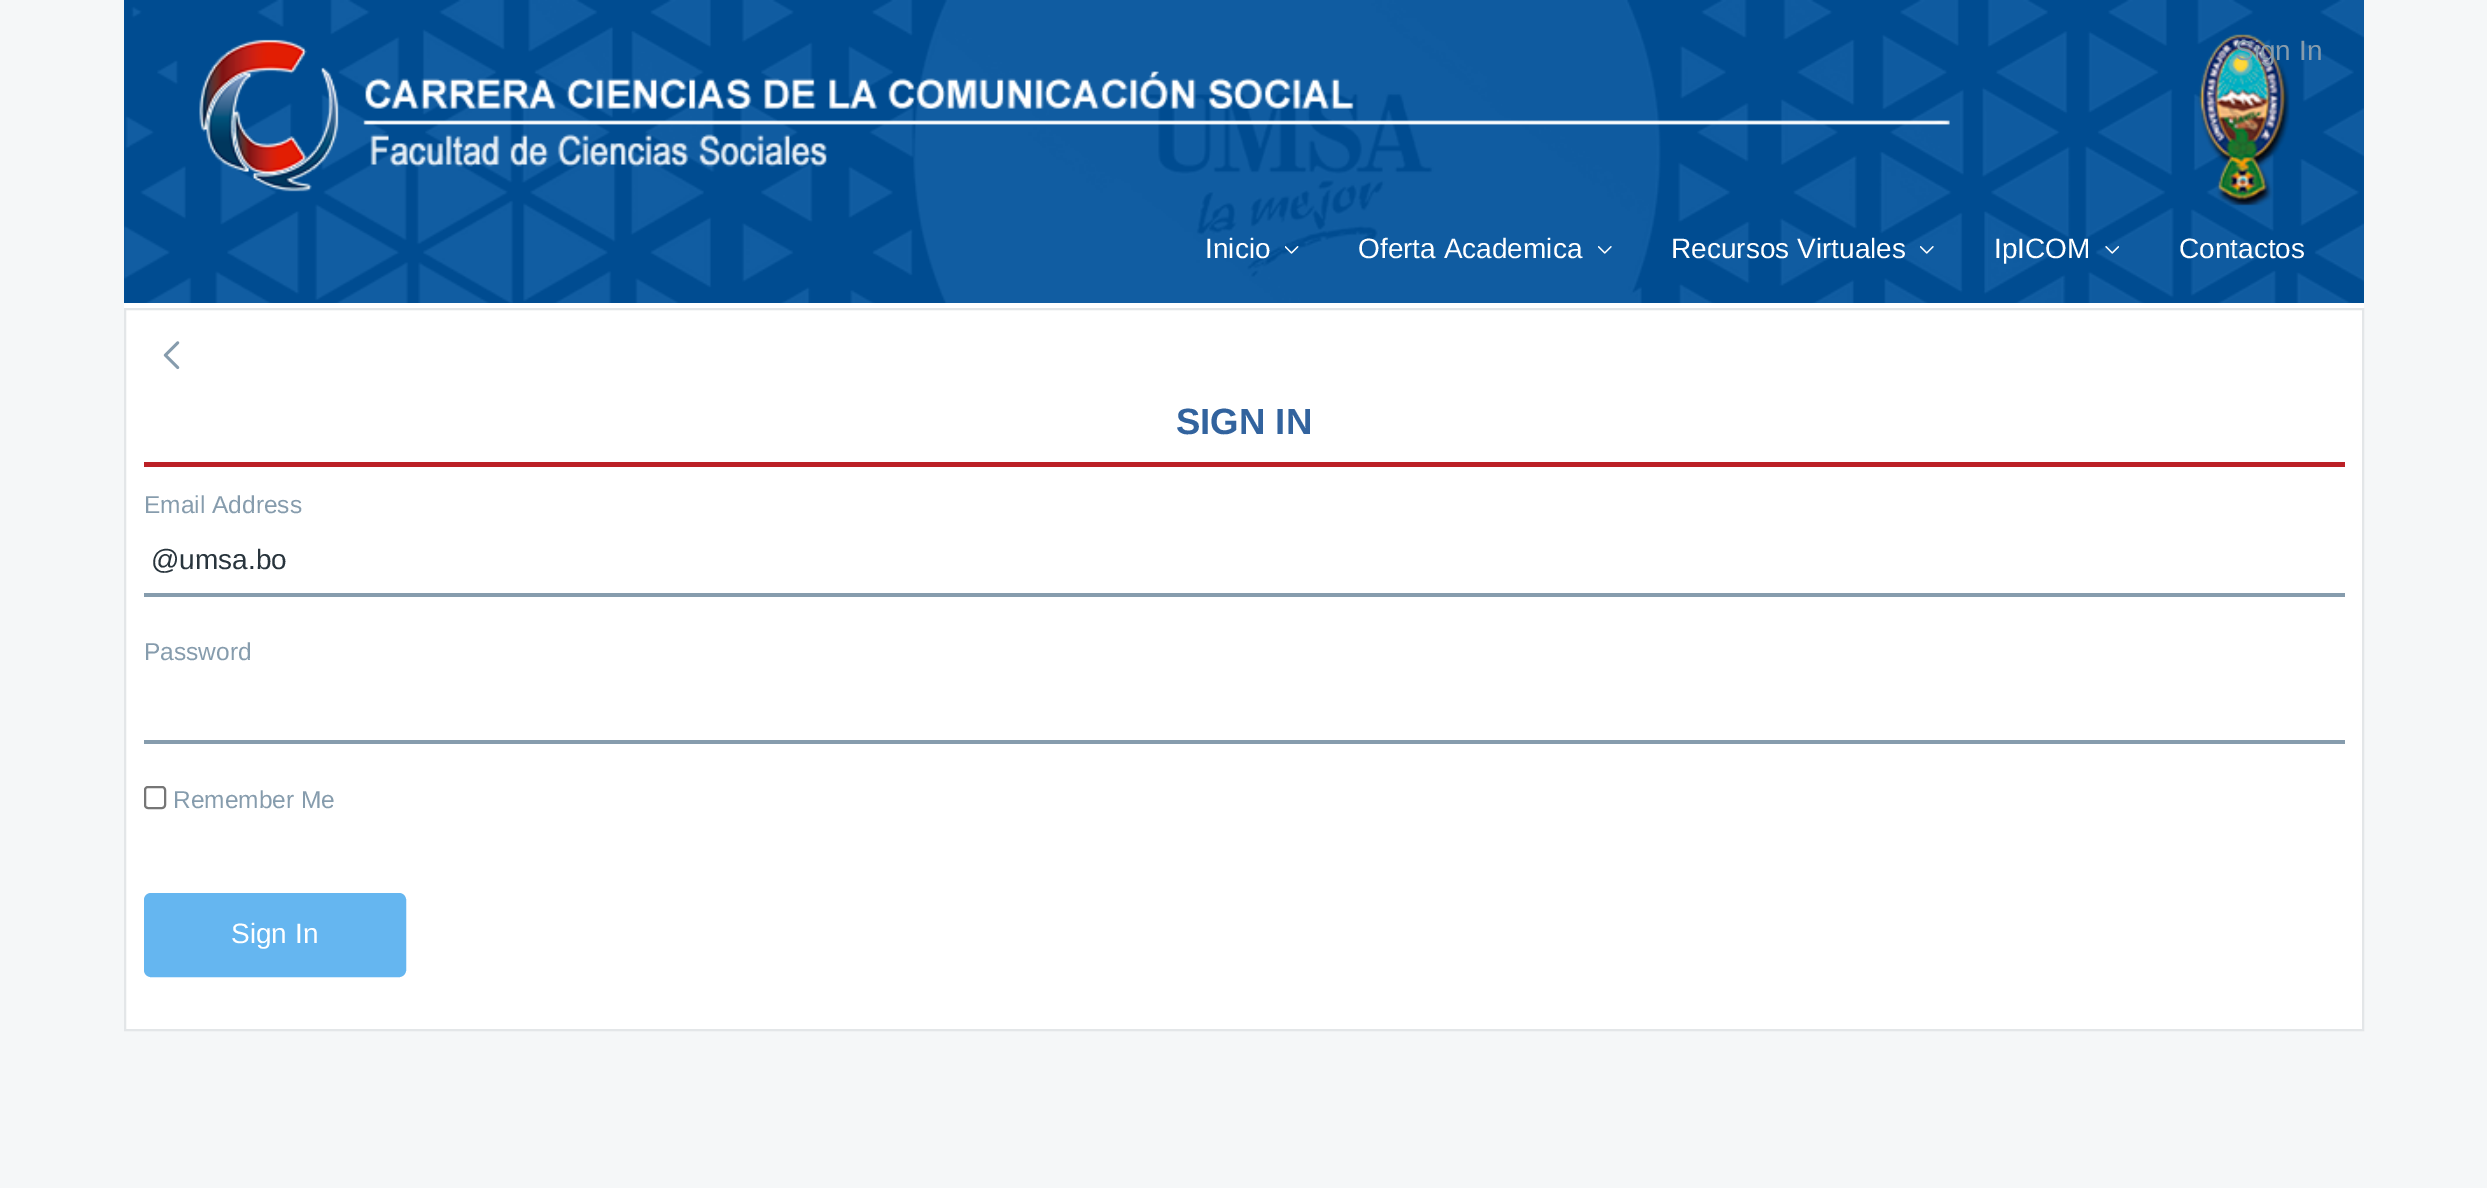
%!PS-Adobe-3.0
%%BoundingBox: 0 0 2487 1188
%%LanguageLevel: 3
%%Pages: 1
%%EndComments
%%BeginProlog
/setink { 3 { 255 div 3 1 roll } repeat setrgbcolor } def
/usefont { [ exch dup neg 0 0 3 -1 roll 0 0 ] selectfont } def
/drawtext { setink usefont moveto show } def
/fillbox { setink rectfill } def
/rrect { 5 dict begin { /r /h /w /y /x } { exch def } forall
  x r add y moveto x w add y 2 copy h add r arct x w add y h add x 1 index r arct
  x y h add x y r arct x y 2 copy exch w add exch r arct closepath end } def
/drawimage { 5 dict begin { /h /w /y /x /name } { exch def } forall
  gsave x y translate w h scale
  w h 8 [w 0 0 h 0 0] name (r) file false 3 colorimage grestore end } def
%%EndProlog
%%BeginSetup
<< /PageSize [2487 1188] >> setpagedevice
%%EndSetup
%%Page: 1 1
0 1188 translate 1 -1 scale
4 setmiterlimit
0 0 2487 1188 245 247 248 fillbox
124 0 2240 303 0 82 156 fillbox
(assets/img1.rgb) 124 0 2240 303 drawimage
124 303 2240 5 255 255 255 fillbox
(assets/img2.rgb) 199 39 140 153 drawimage
(Sign In) 2235 60 /LiberationSans-Regular 28 134 156 173 drawtext
(Inicio) 1205 258 /LiberationSans-Regular 28 255 255 255 drawtext
(assets/img3.rgb) 1285 246 14 8 drawimage
(Oferta Academica) 1358 258 /LiberationSans-Regular 28 255 255 255 drawtext
(assets/img4.rgb) 1598 246 14 8 drawimage
(Recursos Virtuales) 1671 258 /LiberationSans-Regular 28 255 255 255 drawtext
(assets/img4.rgb) 1920 246 14 8 drawimage
(IpICOM) 1994 258 /LiberationSans-Regular 28 255 255 255 drawtext
(assets/img5.rgb) 2105 246 14 8 drawimage
(Contactos) 2179 258 /LiberationSans-Regular 28 255 255 255 drawtext
125 309 moveto 2363 309 lineto 2363 1030 lineto 125 1030 lineto closepath gsave fill grestore
227 230 232 setink
2 setlinewidth
stroke
(assets/img6.rgb) 163 341 17 29 drawimage
144 462 2201 5 187 32 38 fillbox
(SIGN IN) 1176 434 /LiberationSans-Bold 36.5 50 99 158 drawtext
(Email Address) 144 513 /LiberationSans-Regular 24.5 134 156 173 drawtext
144 593 2201 4 134 156 173 fillbox
(@umsa.bo) 151 569 /LiberationSans-Regular 28 41 53 61 drawtext
(Password) 144 660 /LiberationSans-Regular 24.5 134 156 173 drawtext
144 740 2201 4 134 156 173 fillbox
118 118 118 setink
145 787 20 21 3 rrect stroke
(Remember Me) 173 808 /LiberationSans-Regular 24.5 134 156 173 drawtext
101 182 240 setink
146 895 258 80 5 rrect gsave fill grestore
4 setlinewidth
stroke
(Sign In) 231 943 /LiberationSans-Regular 28 255 255 255 drawtext
showpage
%%EOF
